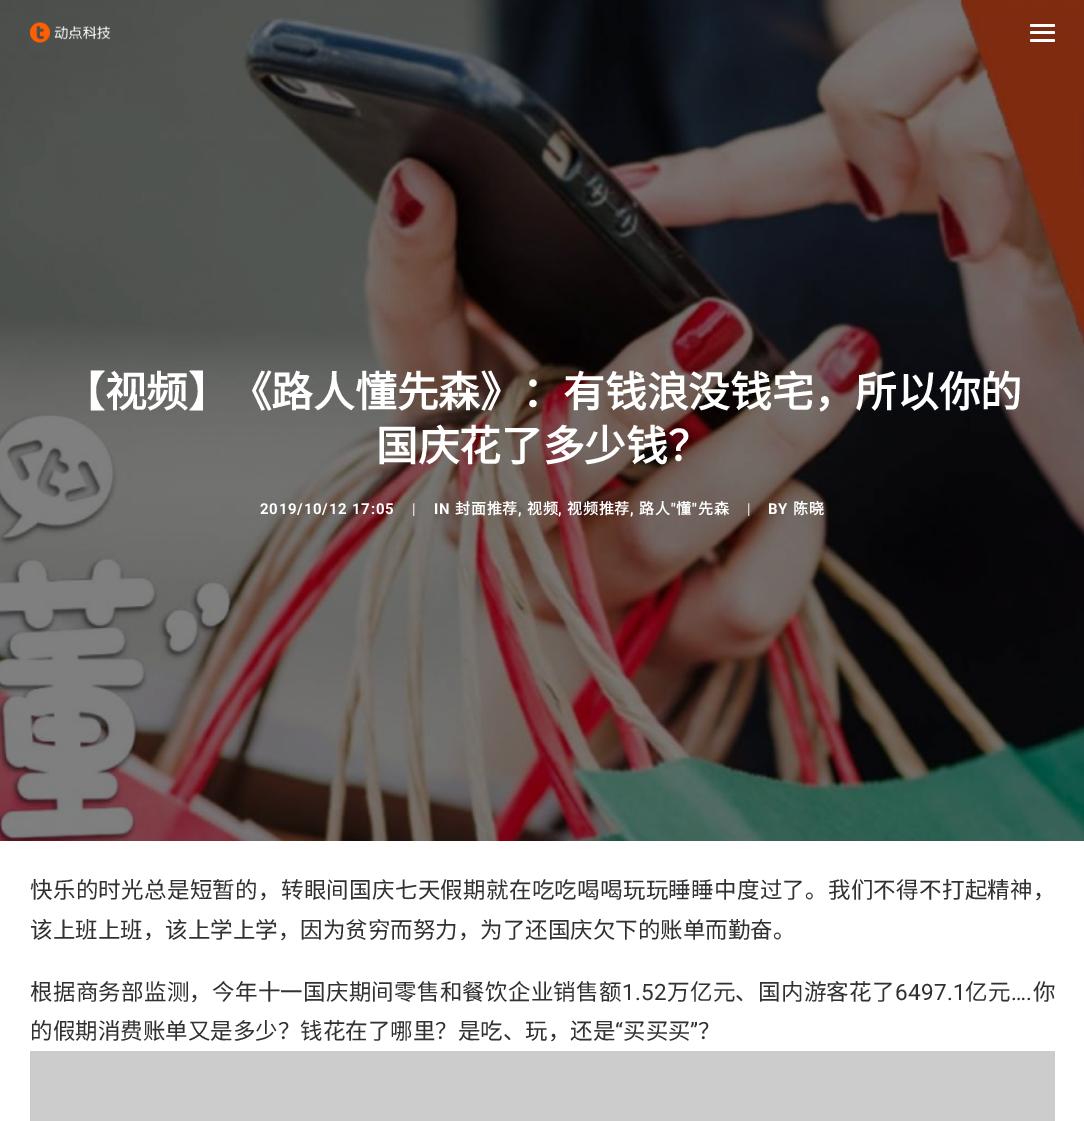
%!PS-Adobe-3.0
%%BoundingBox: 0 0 1084 1121
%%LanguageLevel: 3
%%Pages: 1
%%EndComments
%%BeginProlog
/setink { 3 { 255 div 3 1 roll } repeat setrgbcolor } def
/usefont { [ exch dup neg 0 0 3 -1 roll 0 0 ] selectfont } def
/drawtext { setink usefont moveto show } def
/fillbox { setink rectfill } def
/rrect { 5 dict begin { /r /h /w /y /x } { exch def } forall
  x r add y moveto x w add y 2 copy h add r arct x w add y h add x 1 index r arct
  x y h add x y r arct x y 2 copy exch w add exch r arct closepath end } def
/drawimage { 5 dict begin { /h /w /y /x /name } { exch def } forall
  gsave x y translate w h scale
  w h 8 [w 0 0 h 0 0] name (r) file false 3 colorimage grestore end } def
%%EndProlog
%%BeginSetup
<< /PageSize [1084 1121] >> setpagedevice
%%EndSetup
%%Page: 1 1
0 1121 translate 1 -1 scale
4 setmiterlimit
0 0 1084 1121 255 255 255 fillbox
(assets/img2.rgb) 0 0 1084 841 drawimage
(assets/img1.rgb) 30 22 80 21 drawimage
1030 31 25 3 1.5 rrect fill
1030 24 25 3 1.5 rrect fill
1030 39 25 3 1.5 rrect fill
(【视频】《路人懂先森》：有钱浪没钱宅，所以你的) 63 407 /NotoSansCJKSC-Bold 41.7 255 255 255 drawtext
(国庆花了多少钱？) 376 461 /NotoSansCJKSC-Bold 41.7 255 255 255 drawtext
/Roboto-Bold 15 usefont
260 514 moveto 0.75 0 (2019/10/12 17:05) ashow
/Roboto-Regular 15 usefont
412 514 moveto 0.75 0 (|) ashow
/Roboto-Bold 15 usefont
434 514 moveto 0.75 0 (IN) ashow
/NotoSansCJKSC-Bold 15 usefont
455 514 moveto 0.75 0 (封面推荐) ashow
527 514 moveto 0.75 0 (视频) ashow
567 514 moveto 0.75 0 (视频推荐) ashow
639 514 moveto 0.75 0 (路人) ashow
/Roboto-Bold 15 usefont
671 514 moveto 0.75 0 (") ashow
/NotoSansCJKSC-Bold 15 usefont
676 514 moveto 0.75 0 (懂) ashow
/Roboto-Bold 15 usefont
692 514 moveto 0.75 0 (") ashow
/NotoSansCJKSC-Bold 15 usefont
698 514 moveto 0.75 0 (先森) ashow
/Roboto-Regular 15 usefont
747 514 moveto 0.75 0 (|) ashow
/Roboto-Bold 15 usefont
768 514 moveto 0.75 0 (BY) ashow
/NotoSansCJKSC-Bold 15 usefont
793 514 moveto 0.75 0 (陈晓) ashow
/Roboto-Bold 15 usefont
518 514 moveto 0.75 0 (,) ashow
558 514 moveto 0.75 0 (,) ashow
630 514 moveto 0.75 0 (,) ashow
/NotoSansCJKSC-Regular 22.5 usefont
48 49 51 setink
30 898 moveto 0.3 0 (快乐的时光总是短暂的，转眼间国庆七天假期就在吃吃喝喝玩玩睡睡中度过了。我们不得不打起精神，) ashow
(该上班上班，该上学上学，因为贫穷而努力，为了还国庆欠下的账单而勤奋。) 30 938 /NotoSansCJKSC-Regular 22.5 48 49 51 drawtext
30 1000 moveto 0.25 0 (根据商务部监测，今年十一国庆期间零售和餐饮企业销售额) ashow
/Roboto-Regular 22.5 usefont
622 1000 moveto 0.25 0 (1.52) ashow
/NotoSansCJKSC-Regular 22.5 usefont
667 1000 moveto 0.25 0 (万亿元、国内游客花了) ashow
/Roboto-Regular 22.5 usefont
895 1000 moveto 0.25 0 (6497.1) ashow
/NotoSansCJKSC-Regular 22.5 usefont
965 1000 moveto 0.25 0 (亿元) ashow
/Roboto-Regular 22.5 usefont
1011 1000 moveto 0.25 0 (….) ashow
/NotoSansCJKSC-Regular 22.5 usefont
1033 1000 moveto 0.25 0 (你) ashow
(的假期消费账单又是多少？钱花在了哪里？是吃、玩，还是) 30 1039 /NotoSansCJKSC-Regular 22.5 48 49 51 drawtext
(“) 615 1039 /Roboto-Regular 22.5 48 49 51 drawtext
(买买买) 623 1039 /NotoSansCJKSC-Regular 22.5 48 49 51 drawtext
(”) 690 1039 /Roboto-Regular 22.5 48 49 51 drawtext
(？) 698 1039 /NotoSansCJKSC-Regular 22.5 48 49 51 drawtext
30 1051 1025 70 204 204 204 fillbox
showpage
%%EOF
